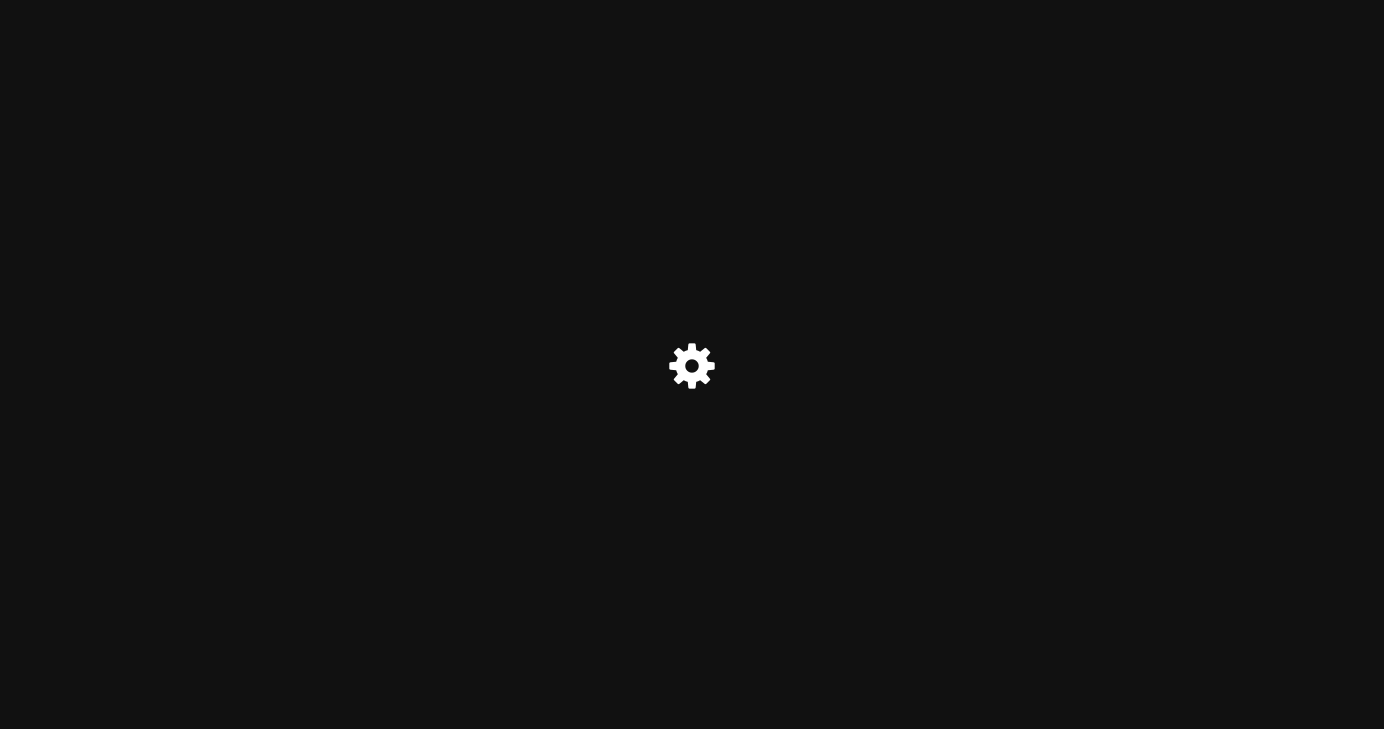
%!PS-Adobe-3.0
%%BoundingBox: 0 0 1384 729
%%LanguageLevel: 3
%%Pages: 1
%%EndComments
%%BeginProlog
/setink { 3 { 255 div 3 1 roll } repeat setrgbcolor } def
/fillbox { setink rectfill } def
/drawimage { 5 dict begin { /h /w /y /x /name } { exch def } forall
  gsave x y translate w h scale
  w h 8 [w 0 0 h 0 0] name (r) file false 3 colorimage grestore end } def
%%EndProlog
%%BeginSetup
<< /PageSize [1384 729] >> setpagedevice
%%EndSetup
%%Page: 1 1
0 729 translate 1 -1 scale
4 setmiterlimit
0 0 1384 729 17 17 17 fillbox
(assets/img1.rgb) 669 343 46 46 drawimage
showpage
%%EOF
